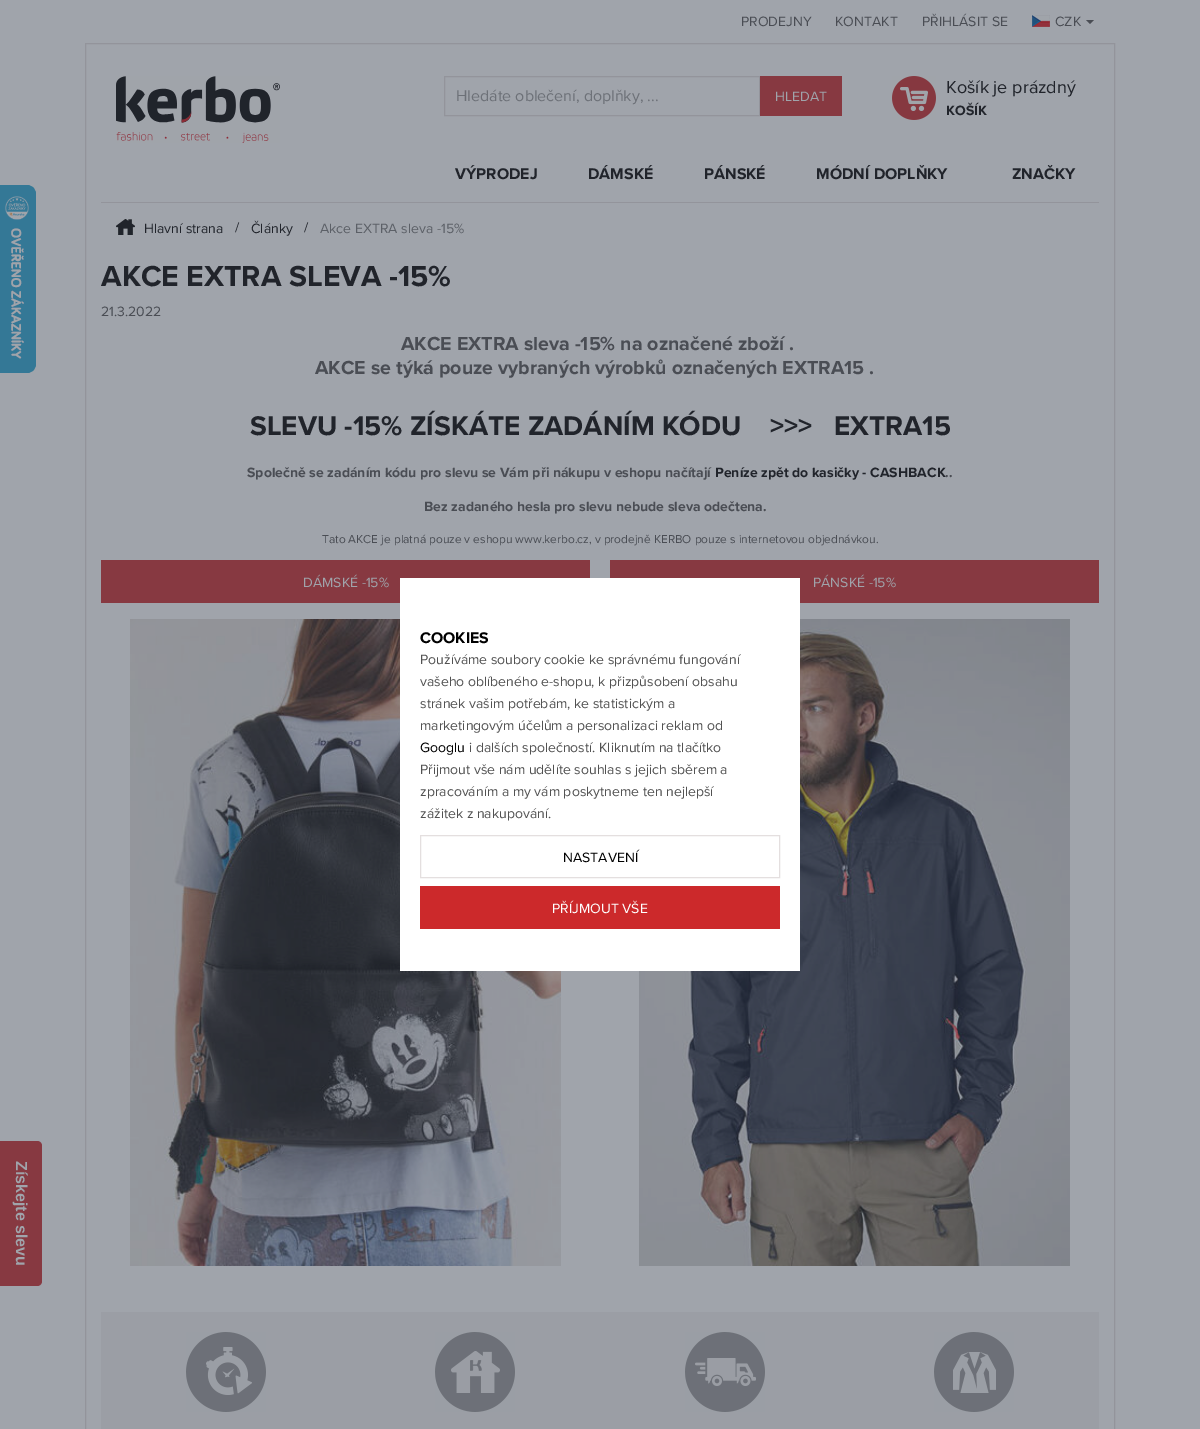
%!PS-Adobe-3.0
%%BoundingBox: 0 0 1200 1429
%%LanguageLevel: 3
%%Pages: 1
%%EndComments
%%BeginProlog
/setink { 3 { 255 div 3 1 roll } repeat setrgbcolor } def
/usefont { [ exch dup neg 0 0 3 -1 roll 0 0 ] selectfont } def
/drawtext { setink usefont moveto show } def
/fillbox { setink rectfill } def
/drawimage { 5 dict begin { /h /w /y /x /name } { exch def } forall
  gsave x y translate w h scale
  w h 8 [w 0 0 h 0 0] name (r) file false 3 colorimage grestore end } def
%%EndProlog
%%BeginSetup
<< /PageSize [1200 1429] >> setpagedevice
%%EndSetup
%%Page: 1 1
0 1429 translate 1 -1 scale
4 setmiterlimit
0 0 1200 1429 160 164 171 fillbox
(PRODEJNY) 741 26 /ProximaNova-Regular 14 74 77 84 drawtext
(KONTAKT) 835 26 /ProximaNova-Regular 14 74 77 84 drawtext
(PŘIHLÁSIT SE) 922 26 /ProximaNova-Regular 14 74 77 84 drawtext
(assets/img1.rgb) 1032 15 18 12 drawimage
(CZK) 1055 26 /ProximaNova-Regular 14 74 77 84 drawtext
1086 20 moveto 1094 20 lineto 1090 24 lineto closepath fill
(assets/img2.rgb) 0 185 36 188 drawimage
147 148 155 setink
85.5 43.5 1029 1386 rectstroke
(assets/img3.rgb) 116 76 164 67 drawimage
444.5 76.5 315 39 rectstroke
(Hledáte oblečení, doplňky, ...) 456 101 /ProximaNova-Regular 16 109 113 120 drawtext
760 76 82 40 135 57 65 fillbox
(HLEDAT) 775 101 /ProximaNova-Regular 14 160 164 171 drawtext
(assets/img4.rgb) 892 76 44 44 drawimage
(Košík je prázdný) 946 93 /ProximaNova-Regular 18 33 36 43 drawtext
(KOŠÍK) 946 115 /ProximaNova-Bold 14 33 36 43 drawtext
(VÝPRODEJ) 455 179 /ProximaNova-Bold 16 33 36 43 drawtext
(DÁMSKÉ) 588 179 /ProximaNova-Bold 16 33 36 43 drawtext
(PÁNSKÉ) 704 179 /ProximaNova-Bold 16 33 36 43 drawtext
(MÓDNÍ DOPLŇKY) 816 179 /ProximaNova-Bold 16 33 36 43 drawtext
(ZNAČKY) 1012 179 /ProximaNova-Bold 16 33 36 43 drawtext
101 202 998 1 147 148 155 fillbox
(assets/img5.rgb) 116 219 19 16 drawimage
(Hlavní strana) 144 233 /ProximaNova-Regular 14 33 36 43 drawtext
(/) 235 232 /ProximaNova-Regular 14 33 36 43 drawtext
(Články) 251 233 /ProximaNova-Regular 14 33 36 43 drawtext
(/) 304 232 /ProximaNova-Regular 14 33 36 43 drawtext
(Akce EXTRA sleva -15%) 320 233 /ProximaNova-Regular 14 92 96 103 drawtext
(AKCE EXTRA SLEVA -15%) 101 286 /ProximaNova-Bold 30 33 36 43 drawtext
(21.3.2022) 101 316 /ProximaNova-Regular 14 74 77 84 drawtext
(AKCE EXTRA sleva -15% na označené zboží .) 401 350 /ProximaNova-Bold 19.6 74 77 84 drawtext
(AKCE se týká pouze vybraných výrobků označených EXTRA15 .) 315 374 /ProximaNova-Bold 19.6 74 77 84 drawtext
(SLEVU -15% ZÍSKÁTE ZADÁNÍM KÓDU    >>>   EXTRA15) 250 435 /ProximaNova-Bold 28 33 36 43 drawtext
(Společně se zadáním kódu pro slevu se Vám při nákupu v eshopu načítají) 247 477 /ProximaNova-Bold 14 74 77 84 drawtext
(Peníze zpět do kasičky - CASHBACK) 715 477 /ProximaNova-Bold 14 33 36 43 drawtext
(..) 945 477 /ProximaNova-Bold 14 74 77 84 drawtext
(Bez zadaného hesla pro slevu nebude sleva odečtena.) 424 511 /ProximaNova-Bold 14 74 77 84 drawtext
(Tato AKCE je platná pouze v eshopu www.kerbo.cz, v prodejně KERBO pouze s internetovou objednávkou.) 322 543 /ProximaNova-Regular 11.9 74 77 84 drawtext
101 560 489 43 135 57 65 fillbox
(DÁMSKÉ -15%) 303 587 /ProximaNova-Regular 14 160 164 171 drawtext
610 560 489 43 135 57 65 fillbox
(PÁNSKÉ -15%) 813 587 /ProximaNova-Regular 14 160 164 171 drawtext
(assets/img6.rgb) 130 619 431 647 drawimage
(assets/img7.rgb) 639 619 431 647 drawimage
101 1312 998 117 155 158 165 fillbox
186 1332 80 80 109 113 120 fillbox
(assets/img8.rgb) 186 1332 80 80 drawimage
435 1332 80 80 109 113 120 fillbox
(assets/img9.rgb) 435 1332 80 80 drawimage
685 1332 80 80 109 113 120 fillbox
(assets/img10.rgb) 685 1332 80 80 drawimage
934 1332 80 80 109 113 120 fillbox
(assets/img11.rgb) 934 1332 80 80 drawimage
400 578 400 393 255 255 255 fillbox
(COOKIES) 420 643 /ProximaNova-Bold 16 0 0 0 drawtext
(Používáme soubory cookie ke správnému fungování) 420 664 /ProximaNova-Regular 14 82 82 82 drawtext
(vašeho oblíbeného e-shopu, k přizpůsobení obsahu) 420 686 /ProximaNova-Regular 14 82 82 82 drawtext
(stránek vašim potřebám, ke statistickým a) 420 708 /ProximaNova-Regular 14 82 82 82 drawtext
(marketingovým účelům a personalizaci reklam od) 420 730 /ProximaNova-Regular 14 82 82 82 drawtext
(Googlu) 420 752 /ProximaNova-Regular 14 0 0 0 drawtext
(i dalších společností. Kliknutím na tlačítko) 469 752 /ProximaNova-Regular 14 82 82 82 drawtext
(Přijmout vše nám udělíte souhlas s jejich sběrem a) 420 774 /ProximaNova-Regular 14 82 82 82 drawtext
(zpracováním a my vám poskytneme ten nejlepší) 420 796 /ProximaNova-Regular 14 82 82 82 drawtext
(zážitek z nakupování.) 420 818 /ProximaNova-Regular 14 82 82 82 drawtext
228 223 223 setink
420.5 835.5 359 42 rectstroke
(NASTAVENÍ) 563 862 /ProximaNova-Regular 14 0 0 0 drawtext
420 886 360 43 204 41 43 fillbox
(PŘÍJMOUT VŠE) 552 913 /ProximaNova-Regular 14 255 255 255 drawtext
135 57 65 setink
0 1141 moveto 37 1141 lineto 40 1141 42 1143 42 1146 curveto 42 1281 lineto 42 1284 40 1286 37 1286 curveto 0 1286 lineto closepath fill
/LiberationSans-Bold 16 usefont
160 164 171 setink
gsave 16 1161 translate 90 rotate 0 0 moveto (Získejte slevu) show grestore
showpage
%%EOF
